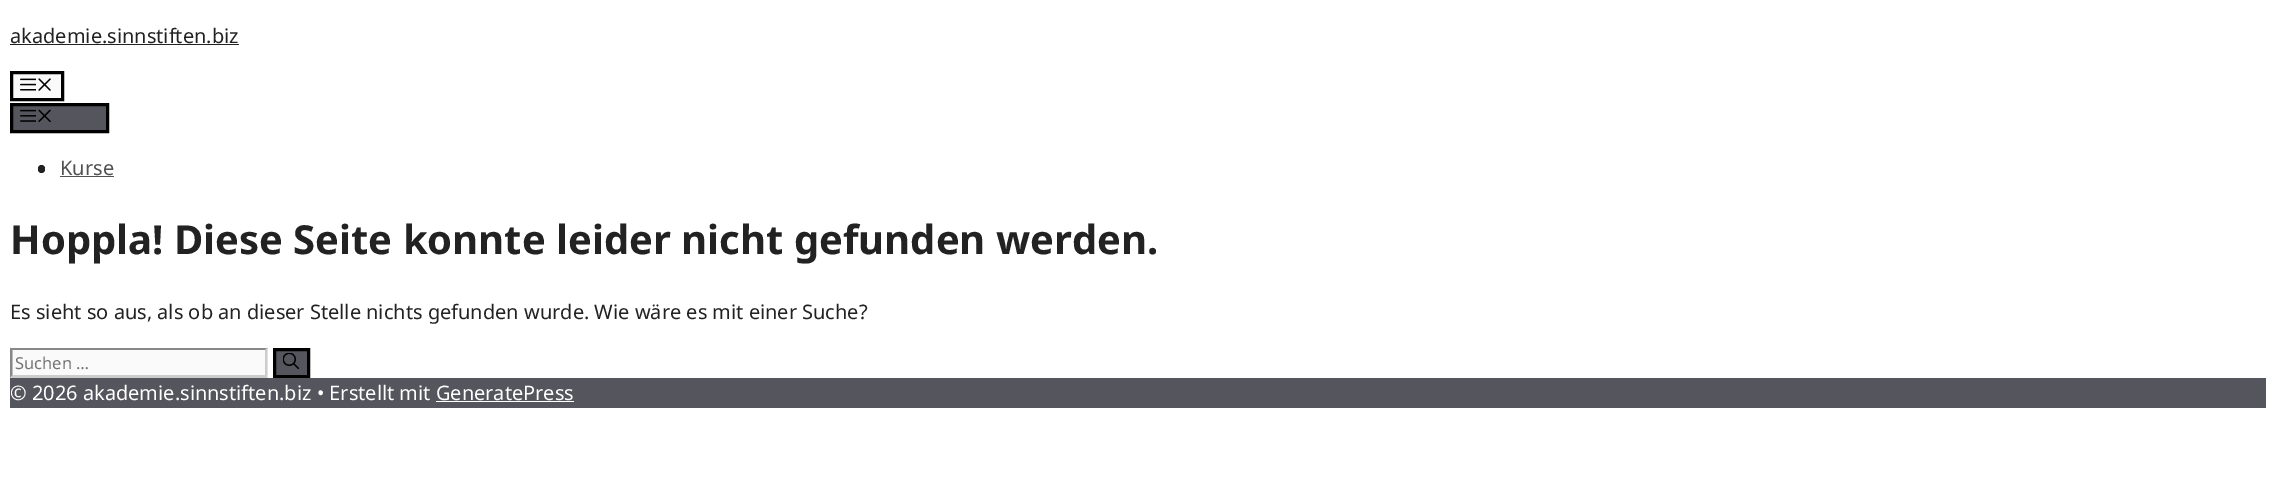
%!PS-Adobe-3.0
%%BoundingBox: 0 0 2276 496
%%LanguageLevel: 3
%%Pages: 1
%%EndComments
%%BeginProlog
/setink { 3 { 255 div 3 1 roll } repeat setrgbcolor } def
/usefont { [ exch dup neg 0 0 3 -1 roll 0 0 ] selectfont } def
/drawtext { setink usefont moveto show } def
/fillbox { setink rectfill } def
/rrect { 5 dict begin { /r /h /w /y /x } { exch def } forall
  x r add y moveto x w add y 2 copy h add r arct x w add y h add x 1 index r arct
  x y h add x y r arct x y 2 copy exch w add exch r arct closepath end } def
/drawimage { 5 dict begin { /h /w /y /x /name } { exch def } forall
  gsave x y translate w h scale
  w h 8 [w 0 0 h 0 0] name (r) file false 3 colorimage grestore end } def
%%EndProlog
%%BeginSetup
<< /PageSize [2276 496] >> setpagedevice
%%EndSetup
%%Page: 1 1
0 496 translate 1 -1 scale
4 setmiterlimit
0 0 2276 496 255 255 255 fillbox
(akademie.sinnstiften.biz) 10 43 /NotoSans-Regular 20 34 34 34 drawtext
10 44 229 1 34 34 34 fillbox
250 250 250 setink
11.5 72.5 moveto 62.5 72.5 lineto 62.5 99.5 lineto 11.5 99.5 lineto closepath gsave fill grestore
0 0 0 setink
3 setlinewidth
stroke
(assets/img1.rgb) 20 78 16 13 drawimage
(assets/img2.rgb) 38 78 13 13 drawimage
85 85 94 setink
11.5 104.5 moveto 107.5 104.5 lineto 107.5 131.5 lineto 11.5 131.5 lineto closepath gsave fill grestore
0 0 0 setink
stroke
(assets/img3.rgb) 20 109 16 13 drawimage
(assets/img4.rgb) 38 109 13 13 drawimage
34 34 34 setink
38 165 7 8 3.5 rrect fill
(Kurse) 60 175 /NotoSans-Regular 20 81 81 81 drawtext
60 176 54 1 81 81 81 fillbox
(Hoppla! Diese Seite konnte leider nicht gefunden werden.) 10 254 /NotoSans-Bold 40 34 34 34 drawtext
(Es sieht so aus, als ob an dieser Stelle nichts gefunden wurde. Wie wäre es mit einer Suche?) 10 319 /NotoSans-Regular 20 34 34 34 drawtext
10 348 258 30 250 250 250 fillbox
136 136 136 setink
10 348 moveto 268 348 lineto 265 350 lineto 12 350 lineto closepath fill
204 204 204 setink
267.5 347.5 moveto 267.5 377.5 lineto 265 375 lineto 265 350 lineto closepath fill
268 378 moveto 10 378 lineto 12 375 lineto 265 375 lineto closepath fill
136 136 136 setink
10 377.5 moveto 10 347.5 lineto 12.5 350 lineto 12.5 375 lineto closepath fill
(Suchen …) 15 369 /NotoSans-Regular 16.5 117 117 117 drawtext
85 85 94 setink
274.5 349.5 moveto 308.5 349.5 lineto 308.5 376.5 lineto 274.5 376.5 lineto closepath gsave fill grestore
0 0 0 setink
stroke
(assets/img5.rgb) 283 353 17 16 drawimage
10 378 2256 30 85 85 94 fillbox
(© 2026 akademie.sinnstiften.biz • Erstellt mit GeneratePress) 10 400 /NotoSans-Regular 20 255 255 255 drawtext
436 401 138 1 255 255 255 fillbox
showpage
%%EOF
